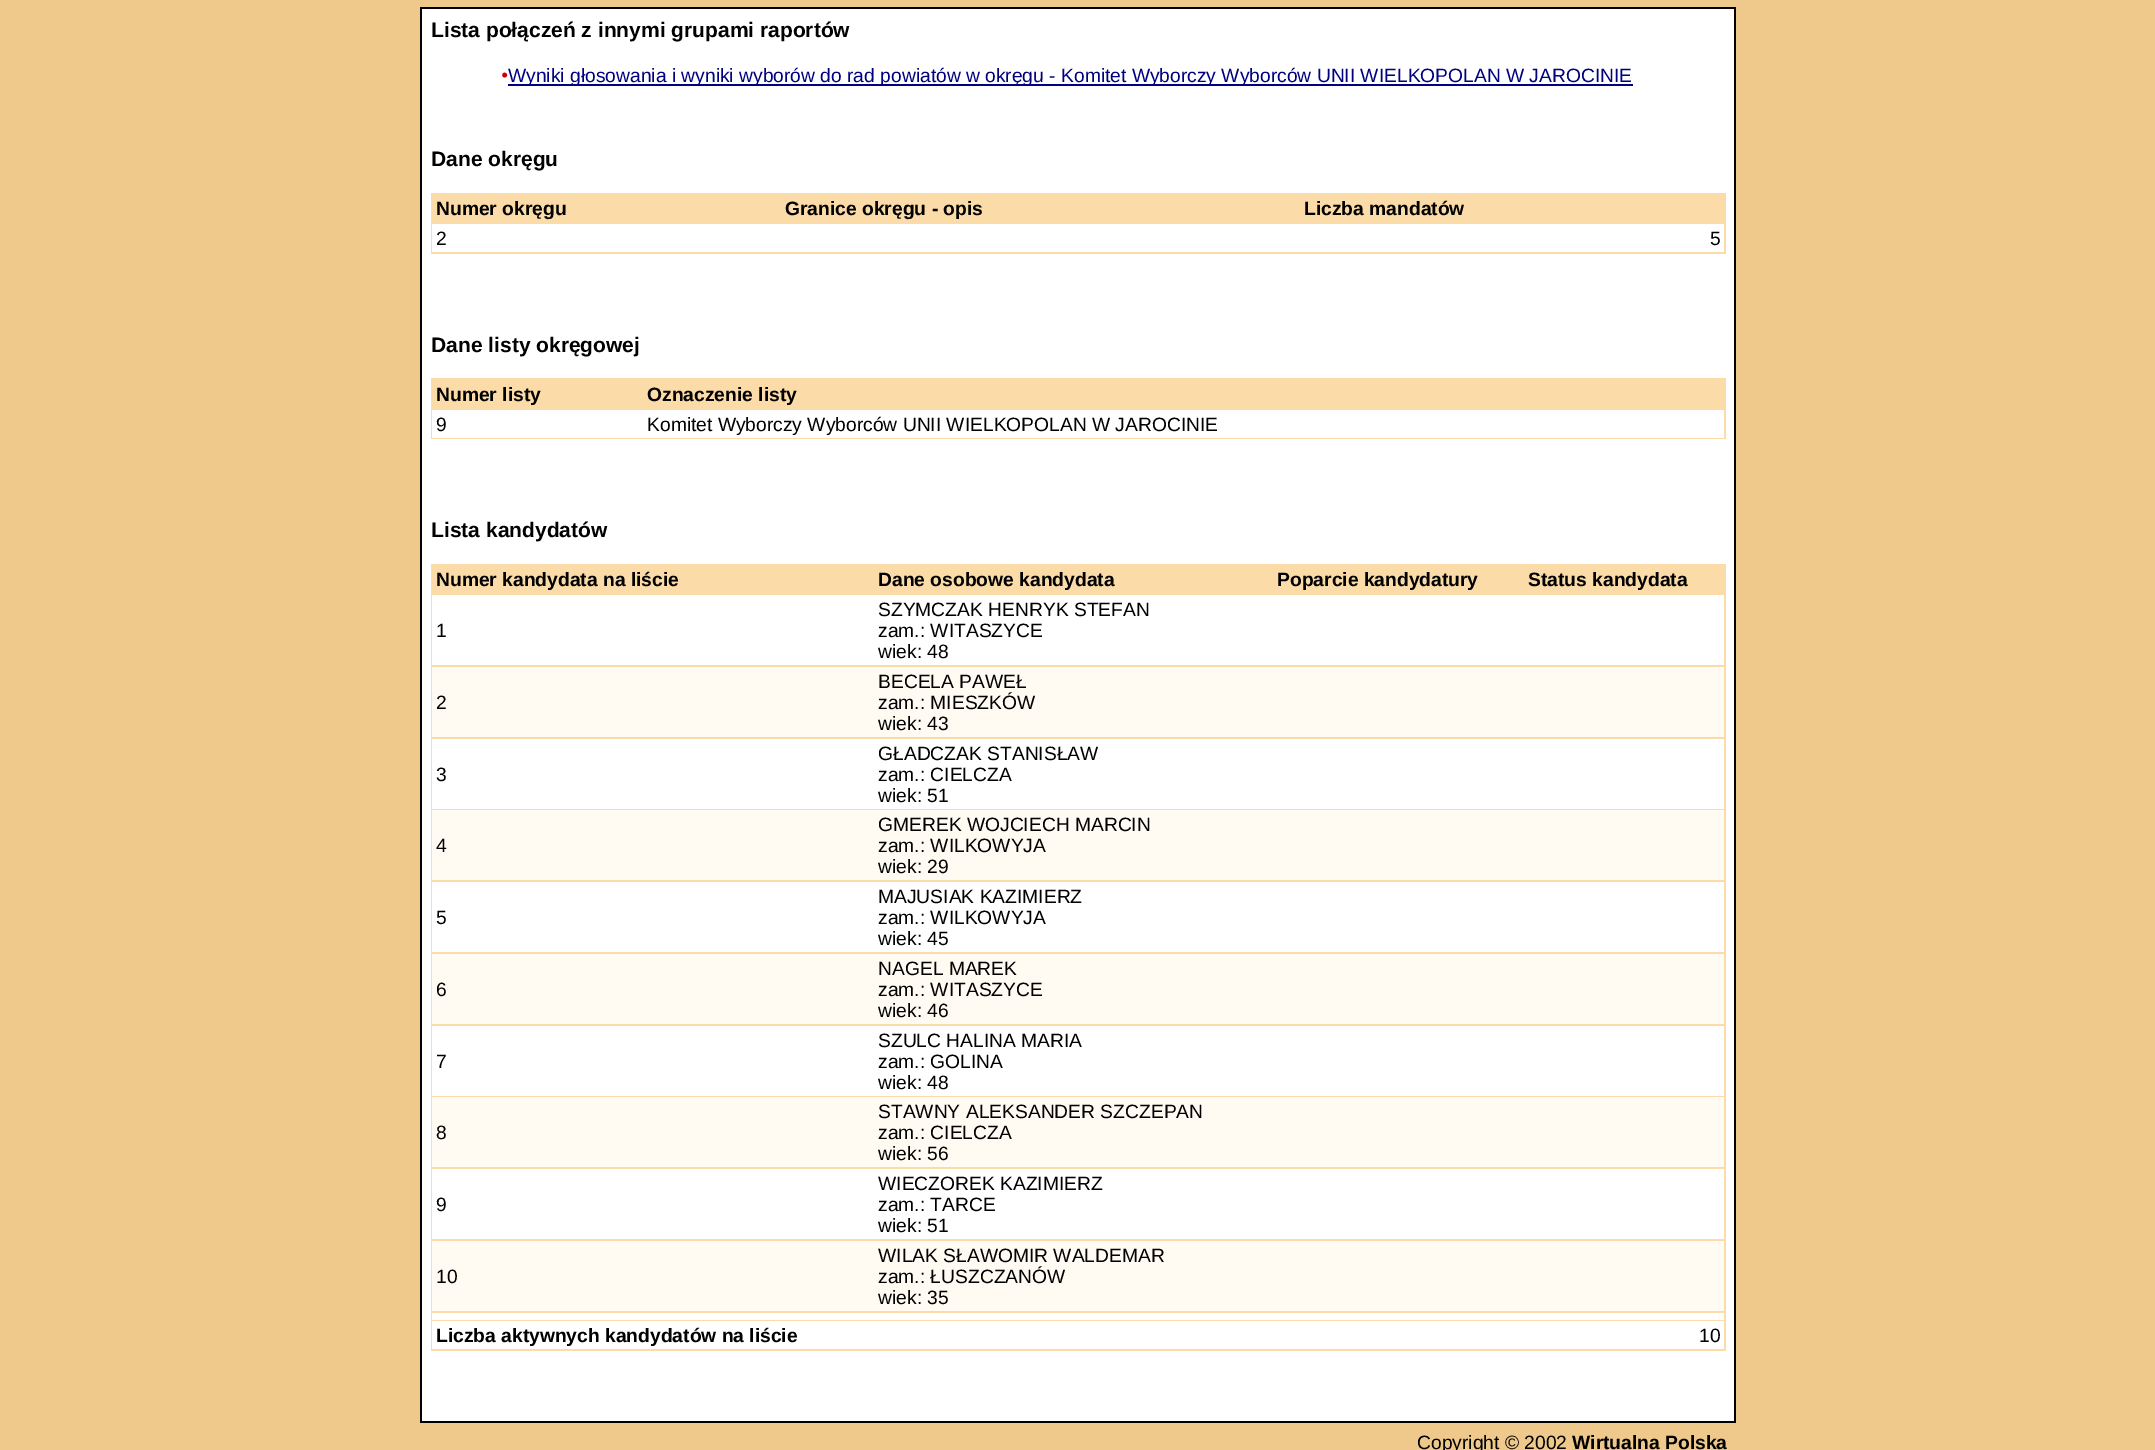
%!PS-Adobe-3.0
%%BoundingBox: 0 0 2155 1450
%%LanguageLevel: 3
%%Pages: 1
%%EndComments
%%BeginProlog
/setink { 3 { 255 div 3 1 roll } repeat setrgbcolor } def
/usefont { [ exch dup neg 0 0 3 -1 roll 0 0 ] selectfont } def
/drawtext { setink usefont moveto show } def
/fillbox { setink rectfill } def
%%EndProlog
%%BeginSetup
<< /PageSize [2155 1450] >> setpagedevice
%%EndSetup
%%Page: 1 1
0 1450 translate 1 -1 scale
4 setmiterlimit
0 0 2155 1450 239 201 139 fillbox
420 7 1316 1416 0 0 0 fillbox
422 9 1312 1412 255 255 255 fillbox
(Lista połączeń z innymi grupami raportów) 431 37 /LiberationSans-Bold 21 0 0 0 drawtext
(•) 501 82 /LiberationSerif-Regular 21 204 0 0 drawtext
508 84 1125 2 0 0 128 fillbox
(Wyniki głosowania i wyniki wyborów do rad powiatów w okręgu - Komitet Wyborczy Wyborców UNII WIELKOPOLAN W JAROCINIE) 508 82 /LiberationSans-Regular 19.25 0 0 128 drawtext
(Dane okręgu) 431 166 /LiberationSans-Bold 21 0 0 0 drawtext
431 193 1295 61 251 219 167 fillbox
(Numer okręgu) 436 215 /LiberationSans-Bold 19.25 0 0 0 drawtext
(Granice okręgu - opis) 785 215 /LiberationSans-Bold 19.25 0 0 0 drawtext
(Liczba mandatów) 1304 215 /LiberationSans-Bold 19.25 0 0 0 drawtext
432 224 1292 28 255 255 255 fillbox
(2) 436 245 /LiberationSans-Regular 19.25 0 0 0 drawtext
(5) 1710 245 /LiberationSans-Regular 19.25 0 0 0 drawtext
(Dane listy okręgowej) 431 352 /LiberationSans-Bold 21 0 0 0 drawtext
431 378 1295 61 251 219 167 fillbox
(Numer listy) 436 401 /LiberationSans-Bold 19.25 0 0 0 drawtext
(Oznaczenie listy) 647 401 /LiberationSans-Bold 19.25 0 0 0 drawtext
432 410 1292 28 255 255 255 fillbox
(9) 436 431 /LiberationSans-Regular 19.25 0 0 0 drawtext
(Komitet Wyborczy Wyborców UNII WIELKOPOLAN W JAROCINIE) 647 431 /LiberationSans-Regular 19.25 0 0 0 drawtext
(Lista kandydatów) 431 537 /LiberationSans-Bold 21 0 0 0 drawtext
431 564 1295 787 251 219 167 fillbox
(Numer kandydata na liście) 436 586 /LiberationSans-Bold 19.25 0 0 0 drawtext
(Dane osobowe kandydata) 878 586 /LiberationSans-Bold 19.25 0 0 0 drawtext
(Poparcie kandydatury) 1277 586 /LiberationSans-Bold 19.25 0 0 0 drawtext
(Status kandydata) 1528 586 /LiberationSans-Bold 19.25 0 0 0 drawtext
432 595 1292 70 255 255 255 fillbox
(1) 436 637 /LiberationSans-Regular 19.25 0 0 0 drawtext
(SZYMCZAK HENRYK STEFAN) 878 616 /LiberationSans-Regular 19.25 0 0 0 drawtext
(zam.: WITASZYCE) 878 637 /LiberationSans-Regular 19.25 0 0 0 drawtext
(wiek: 48) 878 658 /LiberationSans-Regular 19.25 0 0 0 drawtext
432 667 1292 70 255 250 242 fillbox
(2) 436 709 /LiberationSans-Regular 19.25 0 0 0 drawtext
(BECELA PAWEŁ) 878 688 /LiberationSans-Regular 19.25 0 0 0 drawtext
(zam.: MIESZKÓW) 878 709 /LiberationSans-Regular 19.25 0 0 0 drawtext
(wiek: 43) 878 730 /LiberationSans-Regular 19.25 0 0 0 drawtext
432 739 1292 70 255 255 255 fillbox
(3) 436 781 /LiberationSans-Regular 19.25 0 0 0 drawtext
(GŁADCZAK STANISŁAW) 878 760 /LiberationSans-Regular 19.25 0 0 0 drawtext
(zam.: CIELCZA) 878 781 /LiberationSans-Regular 19.25 0 0 0 drawtext
(wiek: 51) 878 802 /LiberationSans-Regular 19.25 0 0 0 drawtext
432 810 1292 70 255 250 242 fillbox
(4) 436 852 /LiberationSans-Regular 19.25 0 0 0 drawtext
(GMEREK WOJCIECH MARCIN) 878 831 /LiberationSans-Regular 19.25 0 0 0 drawtext
(zam.: WILKOWYJA) 878 852 /LiberationSans-Regular 19.25 0 0 0 drawtext
(wiek: 29) 878 873 /LiberationSans-Regular 19.25 0 0 0 drawtext
432 882 1292 70 255 255 255 fillbox
(5) 436 924 /LiberationSans-Regular 19.25 0 0 0 drawtext
(MAJUSIAK KAZIMIERZ) 878 903 /LiberationSans-Regular 19.25 0 0 0 drawtext
(zam.: WILKOWYJA) 878 924 /LiberationSans-Regular 19.25 0 0 0 drawtext
(wiek: 45) 878 945 /LiberationSans-Regular 19.25 0 0 0 drawtext
432 954 1292 70 255 250 242 fillbox
(6) 436 996 /LiberationSans-Regular 19.25 0 0 0 drawtext
(NAGEL MAREK) 878 975 /LiberationSans-Regular 19.25 0 0 0 drawtext
(zam.: WITASZYCE) 878 996 /LiberationSans-Regular 19.25 0 0 0 drawtext
(wiek: 46) 878 1017 /LiberationSans-Regular 19.25 0 0 0 drawtext
432 1026 1292 70 255 255 255 fillbox
(7) 436 1068 /LiberationSans-Regular 19.25 0 0 0 drawtext
(SZULC HALINA MARIA) 878 1047 /LiberationSans-Regular 19.25 0 0 0 drawtext
(zam.: GOLINA) 878 1068 /LiberationSans-Regular 19.25 0 0 0 drawtext
(wiek: 48) 878 1089 /LiberationSans-Regular 19.25 0 0 0 drawtext
432 1097 1292 70 255 250 242 fillbox
(8) 436 1139 /LiberationSans-Regular 19.25 0 0 0 drawtext
(STAWNY ALEKSANDER SZCZEPAN) 878 1118 /LiberationSans-Regular 19.25 0 0 0 drawtext
(zam.: CIELCZA) 878 1139 /LiberationSans-Regular 19.25 0 0 0 drawtext
(wiek: 56) 878 1160 /LiberationSans-Regular 19.25 0 0 0 drawtext
432 1169 1292 70 255 255 255 fillbox
(9) 436 1211 /LiberationSans-Regular 19.25 0 0 0 drawtext
(WIECZOREK KAZIMIERZ) 878 1190 /LiberationSans-Regular 19.25 0 0 0 drawtext
(zam.: TARCE) 878 1211 /LiberationSans-Regular 19.25 0 0 0 drawtext
(wiek: 51) 878 1232 /LiberationSans-Regular 19.25 0 0 0 drawtext
432 1241 1292 70 255 250 242 fillbox
(10) 436 1283 /LiberationSans-Regular 19.25 0 0 0 drawtext
(WILAK SŁAWOMIR WALDEMAR) 878 1262 /LiberationSans-Regular 19.25 0 0 0 drawtext
(zam.: ŁUSZCZANÓW) 878 1283 /LiberationSans-Regular 19.25 0 0 0 drawtext
(wiek: 35) 878 1304 /LiberationSans-Regular 19.25 0 0 0 drawtext
432 1313 1292 7 255 255 255 fillbox
432 1321 1292 28 255 255 255 fillbox
(Liczba aktywnych kandydatów na liście) 436 1342 /LiberationSans-Bold 19.25 0 0 0 drawtext
(10) 1699 1342 /LiberationSans-Regular 19.25 0 0 0 drawtext
(Copyright © 2002) 1417 1449 /LiberationSans-Regular 19.25 0 0 0 drawtext
(Wirtualna Polska) 1572 1449 /LiberationSans-Bold 19.25 0 0 0 drawtext
showpage
%%EOF
